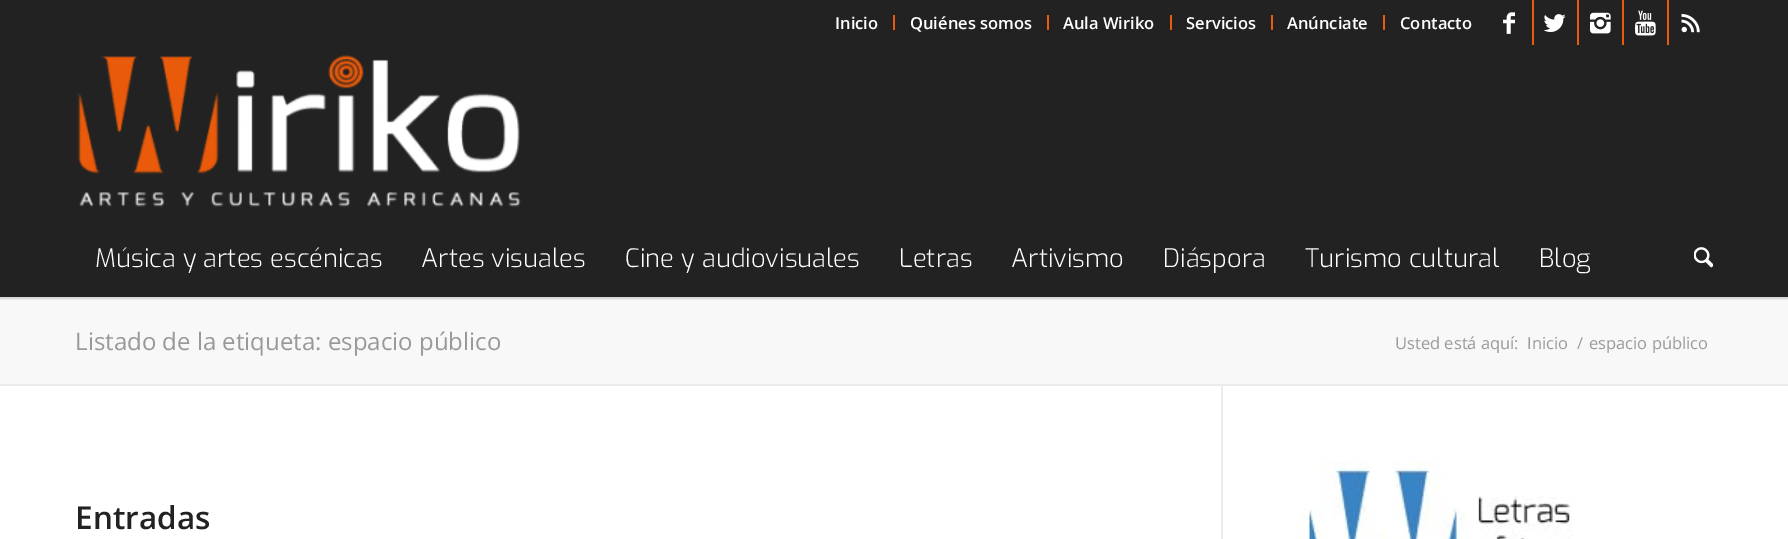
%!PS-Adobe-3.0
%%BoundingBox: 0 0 1788 539
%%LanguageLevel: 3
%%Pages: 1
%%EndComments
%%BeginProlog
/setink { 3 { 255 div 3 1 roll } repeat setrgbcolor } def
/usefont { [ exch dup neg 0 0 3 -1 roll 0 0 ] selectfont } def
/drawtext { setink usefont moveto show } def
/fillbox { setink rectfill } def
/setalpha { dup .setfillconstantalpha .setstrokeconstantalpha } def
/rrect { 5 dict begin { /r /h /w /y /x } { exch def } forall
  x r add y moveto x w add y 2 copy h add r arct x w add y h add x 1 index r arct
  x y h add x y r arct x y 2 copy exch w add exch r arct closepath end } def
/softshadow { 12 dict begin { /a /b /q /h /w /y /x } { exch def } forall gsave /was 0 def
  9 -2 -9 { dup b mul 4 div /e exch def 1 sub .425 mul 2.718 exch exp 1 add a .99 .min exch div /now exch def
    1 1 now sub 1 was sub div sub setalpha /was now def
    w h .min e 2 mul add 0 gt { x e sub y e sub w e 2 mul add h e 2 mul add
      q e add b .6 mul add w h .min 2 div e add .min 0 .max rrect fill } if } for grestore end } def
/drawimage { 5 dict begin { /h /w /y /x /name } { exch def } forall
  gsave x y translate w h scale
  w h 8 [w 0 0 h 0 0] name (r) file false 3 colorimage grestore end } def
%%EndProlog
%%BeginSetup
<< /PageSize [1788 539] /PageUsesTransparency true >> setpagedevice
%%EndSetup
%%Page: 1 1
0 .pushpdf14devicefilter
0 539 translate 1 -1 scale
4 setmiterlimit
0 0 1788 539 34 34 34 fillbox
0 299 1788 85 248 248 248 fillbox
0 297 1788 2 235 235 235 fillbox
gsave
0 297 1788 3 rectclip
0 0 0 setink
-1 -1 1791 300 0 1.5 0.1 softshadow
grestore
893 15 2 15 234 90 12 fillbox
(Inicio) 835 29 /OpenSans-SemiBold 16.5 255 255 255 drawtext
1047 15 2 15 234 90 12 fillbox
(Quiénes somos) 910 29 /OpenSans-SemiBold 16.5 255 255 255 drawtext
1170 15 2 15 234 90 12 fillbox
(Aula Wiriko) 1063 29 /OpenSans-SemiBold 16.5 255 255 255 drawtext
1271 15 2 15 234 90 12 fillbox
(Servicios) 1186 29 /OpenSans-SemiBold 16.5 255 255 255 drawtext
1383 15 2 15 234 90 12 fillbox
(Anúnciate) 1287 29 /OpenSans-SemiBold 16.5 255 255 255 drawtext
(Contacto) 1400 29 /OpenSans-SemiBold 16.5 255 255 255 drawtext
1532 0 2 45 234 90 12 fillbox
(assets/img1.rgb) 1503 12 12 22 drawimage
1577 0 2 45 234 90 12 fillbox
(assets/img2.rgb) 1543 14 23 18 drawimage
1622 0 2 45 234 90 12 fillbox
(assets/img3.rgb) 1590 12 21 22 drawimage
1667 0 2 45 234 90 12 fillbox
(assets/img4.rgb) 1635 10 21 26 drawimage
(assets/img5.rgb) 1681 14 19 19 drawimage
(assets/img6.rgb) 77 55 444 152 drawimage
(Música y artes escénicas) 95 267 /Exo-Light 25.5 255 255 255 drawtext
(Artes visuales) 421 267 /Exo-Light 25.5 255 255 255 drawtext
(Cine y audiovisuales) 625 267 /Exo-Light 25.5 255 255 255 drawtext
(Letras) 899 267 /Exo-Light 25.5 255 255 255 drawtext
(Artivismo) 1011 267 /Exo-Light 25.5 255 255 255 drawtext
(Diáspora) 1163 267 /Exo-Light 25.5 255 255 255 drawtext
(Turismo cultural) 1305 267 /Exo-Light 25.5 255 255 255 drawtext
(Blog) 1539 267 /Exo-Light 25.5 255 255 255 drawtext
(assets/img7.rgb) 1694 247 19 21 drawimage
(Listado de la etiqueta: espacio público) 75 350 /OpenSans-Regular 24 153 153 153 drawtext
(Usted está aquí:) 1395 349 /OpenSans-Regular 16.5 153 153 153 drawtext
(Inicio) 1527 349 /OpenSans-Regular 16.5 153 153 153 drawtext
(/) 1577 349 /OpenSans-Regular 16.5 153 153 153 drawtext
(espacio público) 1589 349 /OpenSans-Regular 16.5 153 153 153 drawtext
0 386 1788 153 255 255 255 fillbox
0 384 1788 2 235 235 235 fillbox
1221 386 2 153 235 235 235 fillbox
(Entradas) 75 529 /OpenSans-SemiBold 31.5 34 34 34 drawtext
(assets/img8.rgb) 1298 461 275 78 drawimage
.poppdf14devicefilter showpage
%%EOF
